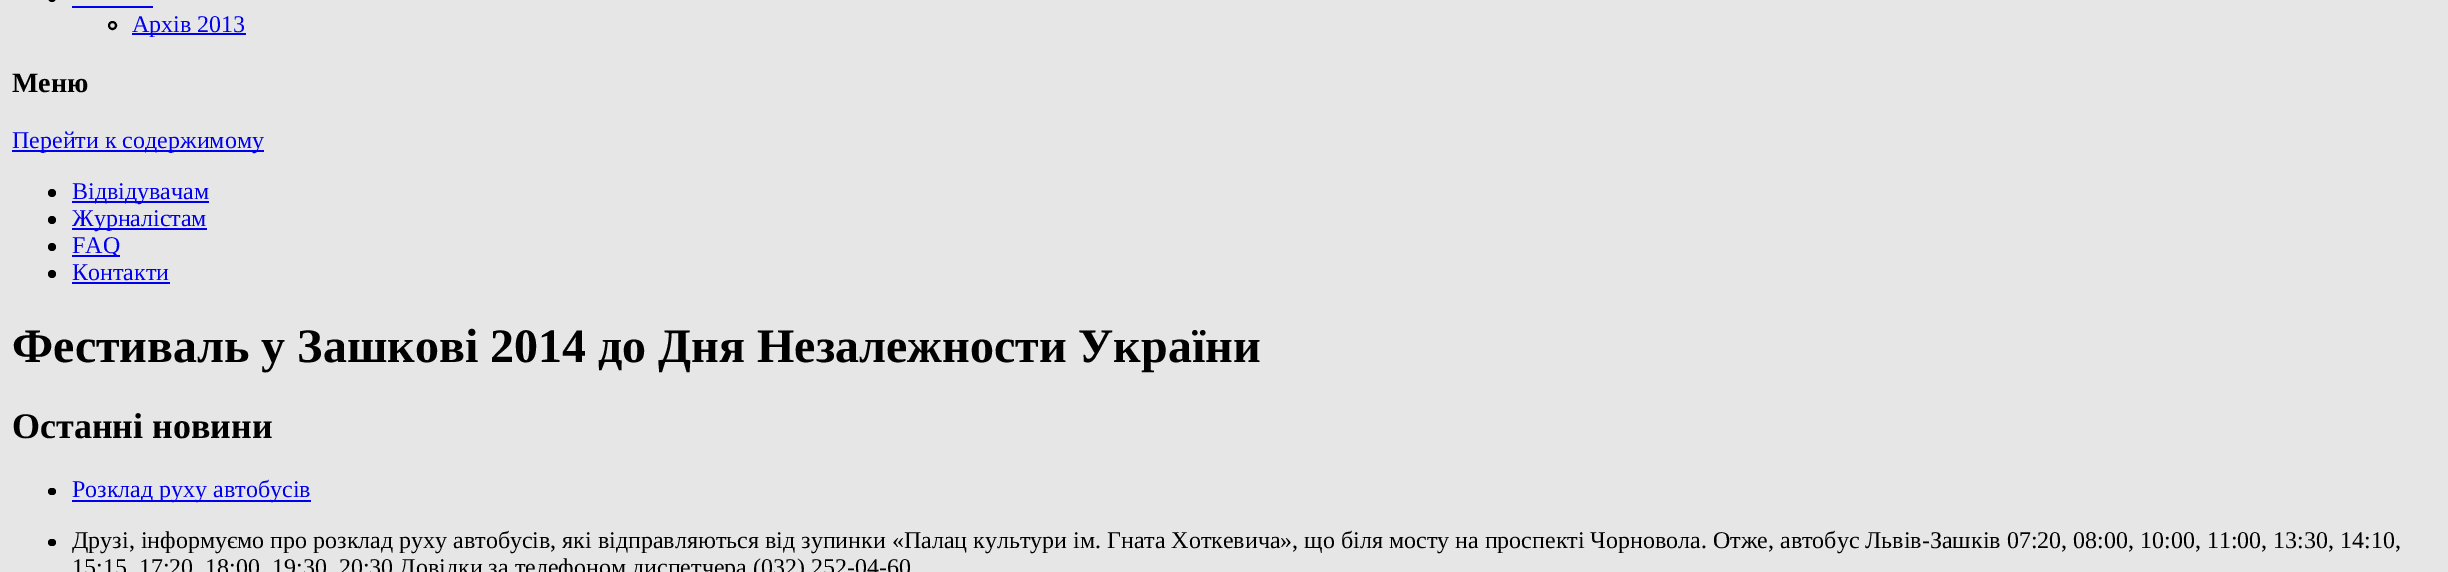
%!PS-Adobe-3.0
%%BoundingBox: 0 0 2448 572
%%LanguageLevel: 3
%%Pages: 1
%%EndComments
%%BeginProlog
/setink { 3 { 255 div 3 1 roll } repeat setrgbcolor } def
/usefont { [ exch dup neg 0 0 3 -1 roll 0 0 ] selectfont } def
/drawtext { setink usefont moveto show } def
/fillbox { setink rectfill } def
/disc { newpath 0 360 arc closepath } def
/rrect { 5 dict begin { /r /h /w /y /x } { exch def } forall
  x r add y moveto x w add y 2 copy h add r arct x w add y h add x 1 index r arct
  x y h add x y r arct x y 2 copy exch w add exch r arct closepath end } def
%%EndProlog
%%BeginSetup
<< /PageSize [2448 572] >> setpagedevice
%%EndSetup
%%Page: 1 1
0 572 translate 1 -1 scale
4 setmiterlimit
0 0 2448 572 230 230 230 fillbox
0 0 0 setink
48 -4 8 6 4 rrect fill
72 6 81 2 0 0 238 fillbox
0 0 0 setink
2 setlinewidth
112.5 25.5 3.5 disc stroke
132 33 114 2 0 0 238 fillbox
(Архів 2013) 132 32 /LiberationSerif-Regular 24 0 0 238 drawtext
(Меню) 12 92 /LiberationSerif-Bold 28 0 0 0 drawtext
12 150 252 2 0 0 238 fillbox
(Перейти к содержимому) 12 148 /LiberationSerif-Regular 24 0 0 238 drawtext
0 0 0 setink
52 193 4 disc fill
72 201 137 2 0 0 238 fillbox
(Відвідувачам) 72 199 /LiberationSerif-Regular 24 0 0 238 drawtext
0 0 0 setink
52 220 4 disc fill
72 228 135 2 0 0 238 fillbox
(Журналістам) 72 226 /LiberationSerif-Regular 24 0 0 238 drawtext
0 0 0 setink
52 247 4 disc fill
72 255 48 2 0 0 238 fillbox
(FAQ) 72 253 /LiberationSerif-Regular 24 0 0 238 drawtext
0 0 0 setink
52 274 4 disc fill
(Контакти) 72 280 /LiberationSerif-Regular 24 0 0 238 drawtext
72 282 98 2 0 0 238 fillbox
(Фестиваль у Зашкові 2014 до Дня Незалежности України) 12 362 /LiberationSerif-Bold 48 0 0 0 drawtext
(Останні новини) 12 438 /LiberationSerif-Bold 36 0 0 0 drawtext
48 488 8 7 3.5 rrect fill
72 500 239 2 0 0 238 fillbox
(Розклад руху автобусів) 72 497 /LiberationSerif-Regular 24 0 0 238 drawtext
0 0 0 setink
48 539 8 7 3.5 rrect fill
(Друзі, інформуємо про розклад руху автобусів, які відправляються від зупинки «Палац культури ім. Гната Хоткевича», що біля мосту на проспекті Чорновола. Отже, автобус Львів-Зашків 07:20, 08:00, 10:00, 11:00, 13:30, 14:10,) 72 548 /LiberationSerif-Regular 24 0 0 0 drawtext
(15:15, 17:20, 18:00, 19:30, 20:30 Довідки за телефоном диспетчера \(032\) 252-04-60) 72 575 /LiberationSerif-Regular 24 0 0 0 drawtext
showpage
%%EOF
